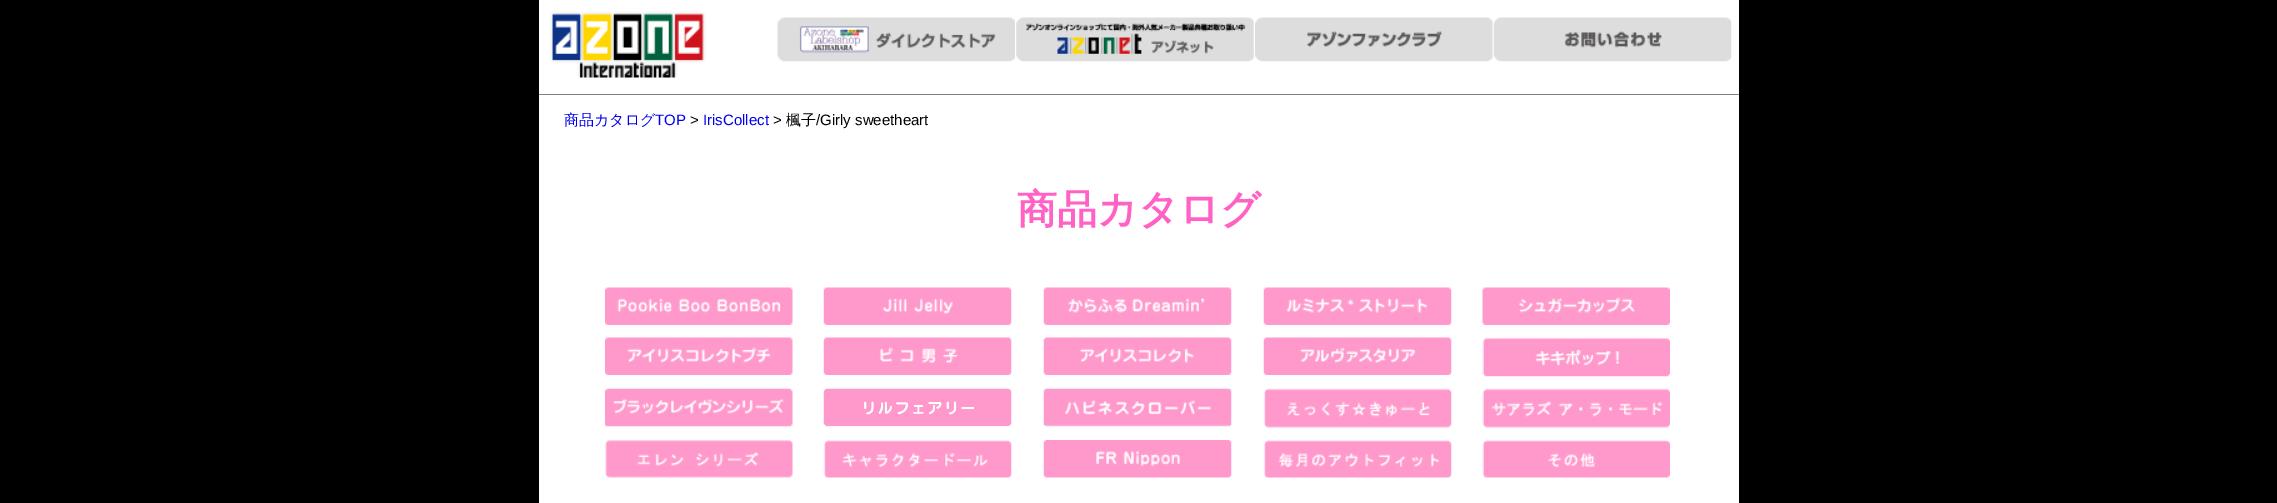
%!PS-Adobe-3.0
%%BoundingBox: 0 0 2277 503
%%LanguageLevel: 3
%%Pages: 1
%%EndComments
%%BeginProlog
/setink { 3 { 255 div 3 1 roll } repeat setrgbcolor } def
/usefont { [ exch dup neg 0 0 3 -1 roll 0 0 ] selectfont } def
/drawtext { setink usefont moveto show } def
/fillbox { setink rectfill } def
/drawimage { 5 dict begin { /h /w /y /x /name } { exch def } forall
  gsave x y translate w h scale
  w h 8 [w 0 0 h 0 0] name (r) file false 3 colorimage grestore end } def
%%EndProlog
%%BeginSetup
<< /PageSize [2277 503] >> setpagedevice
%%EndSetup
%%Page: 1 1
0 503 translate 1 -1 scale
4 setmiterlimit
0 0 2277 503 0 0 0 fillbox
539 0 1200 503 255 255 255 fillbox
539 94 1200 1 128 128 128 fillbox
(assets/img1.rgb) 550 11 156 67 drawimage
(assets/img2.rgb) 777 17 238 45 drawimage
(assets/img3.rgb) 1016 17 238 45 drawimage
(assets/img4.rgb) 1255 17 238 45 drawimage
(assets/img5.rgb) 1493 17 239 45 drawimage
(商品カタログ) 564 125 /WenQuanYiZenHei-Medium 15 0 0 238 drawtext
(TOP) 655 125 /LiberationSans-Regular 15 0 0 238 drawtext
(>) 690 125 /LiberationSans-Regular 15 0 0 0 drawtext
(IrisCollect) 703 125 /LiberationSans-Regular 15 0 0 238 drawtext
(>) 773 125 /LiberationSans-Regular 15 0 0 0 drawtext
(楓子) 786 125 /WenQuanYiZenHei-Medium 15 0 0 0 drawtext
(/Girly sweetheart) 816 125 /LiberationSans-Regular 15 0 0 0 drawtext
(商品カタログ) 1017 223 /WenQuanYiZenHei-Bold 40 255 97 196 drawtext
(assets/img6.rgb) 605 287 188 38 drawimage
(assets/img7.rgb) 823 287 189 38 drawimage
(assets/img8.rgb) 1043 287 189 38 drawimage
(assets/img9.rgb) 1263 287 189 38 drawimage
(assets/img10.rgb) 1482 287 188 38 drawimage
(assets/img11.rgb) 605 337 188 38 drawimage
(assets/img12.rgb) 823 337 189 38 drawimage
(assets/img13.rgb) 1043 337 189 38 drawimage
(assets/img14.rgb) 1263 337 189 38 drawimage
(assets/img15.rgb) 1482 337 188 40 drawimage
(assets/img16.rgb) 605 388 188 39 drawimage
(assets/img17.rgb) 823 388 189 39 drawimage
(assets/img18.rgb) 1043 388 189 39 drawimage
(assets/img19.rgb) 1263 388 189 40 drawimage
(assets/img20.rgb) 1482 388 188 40 drawimage
(assets/img21.rgb) 605 440 188 38 drawimage
(assets/img22.rgb) 823 440 189 38 drawimage
(assets/img23.rgb) 1043 440 189 38 drawimage
(assets/img24.rgb) 1263 440 189 38 drawimage
(assets/img25.rgb) 1482 440 188 38 drawimage
showpage
%%EOF
